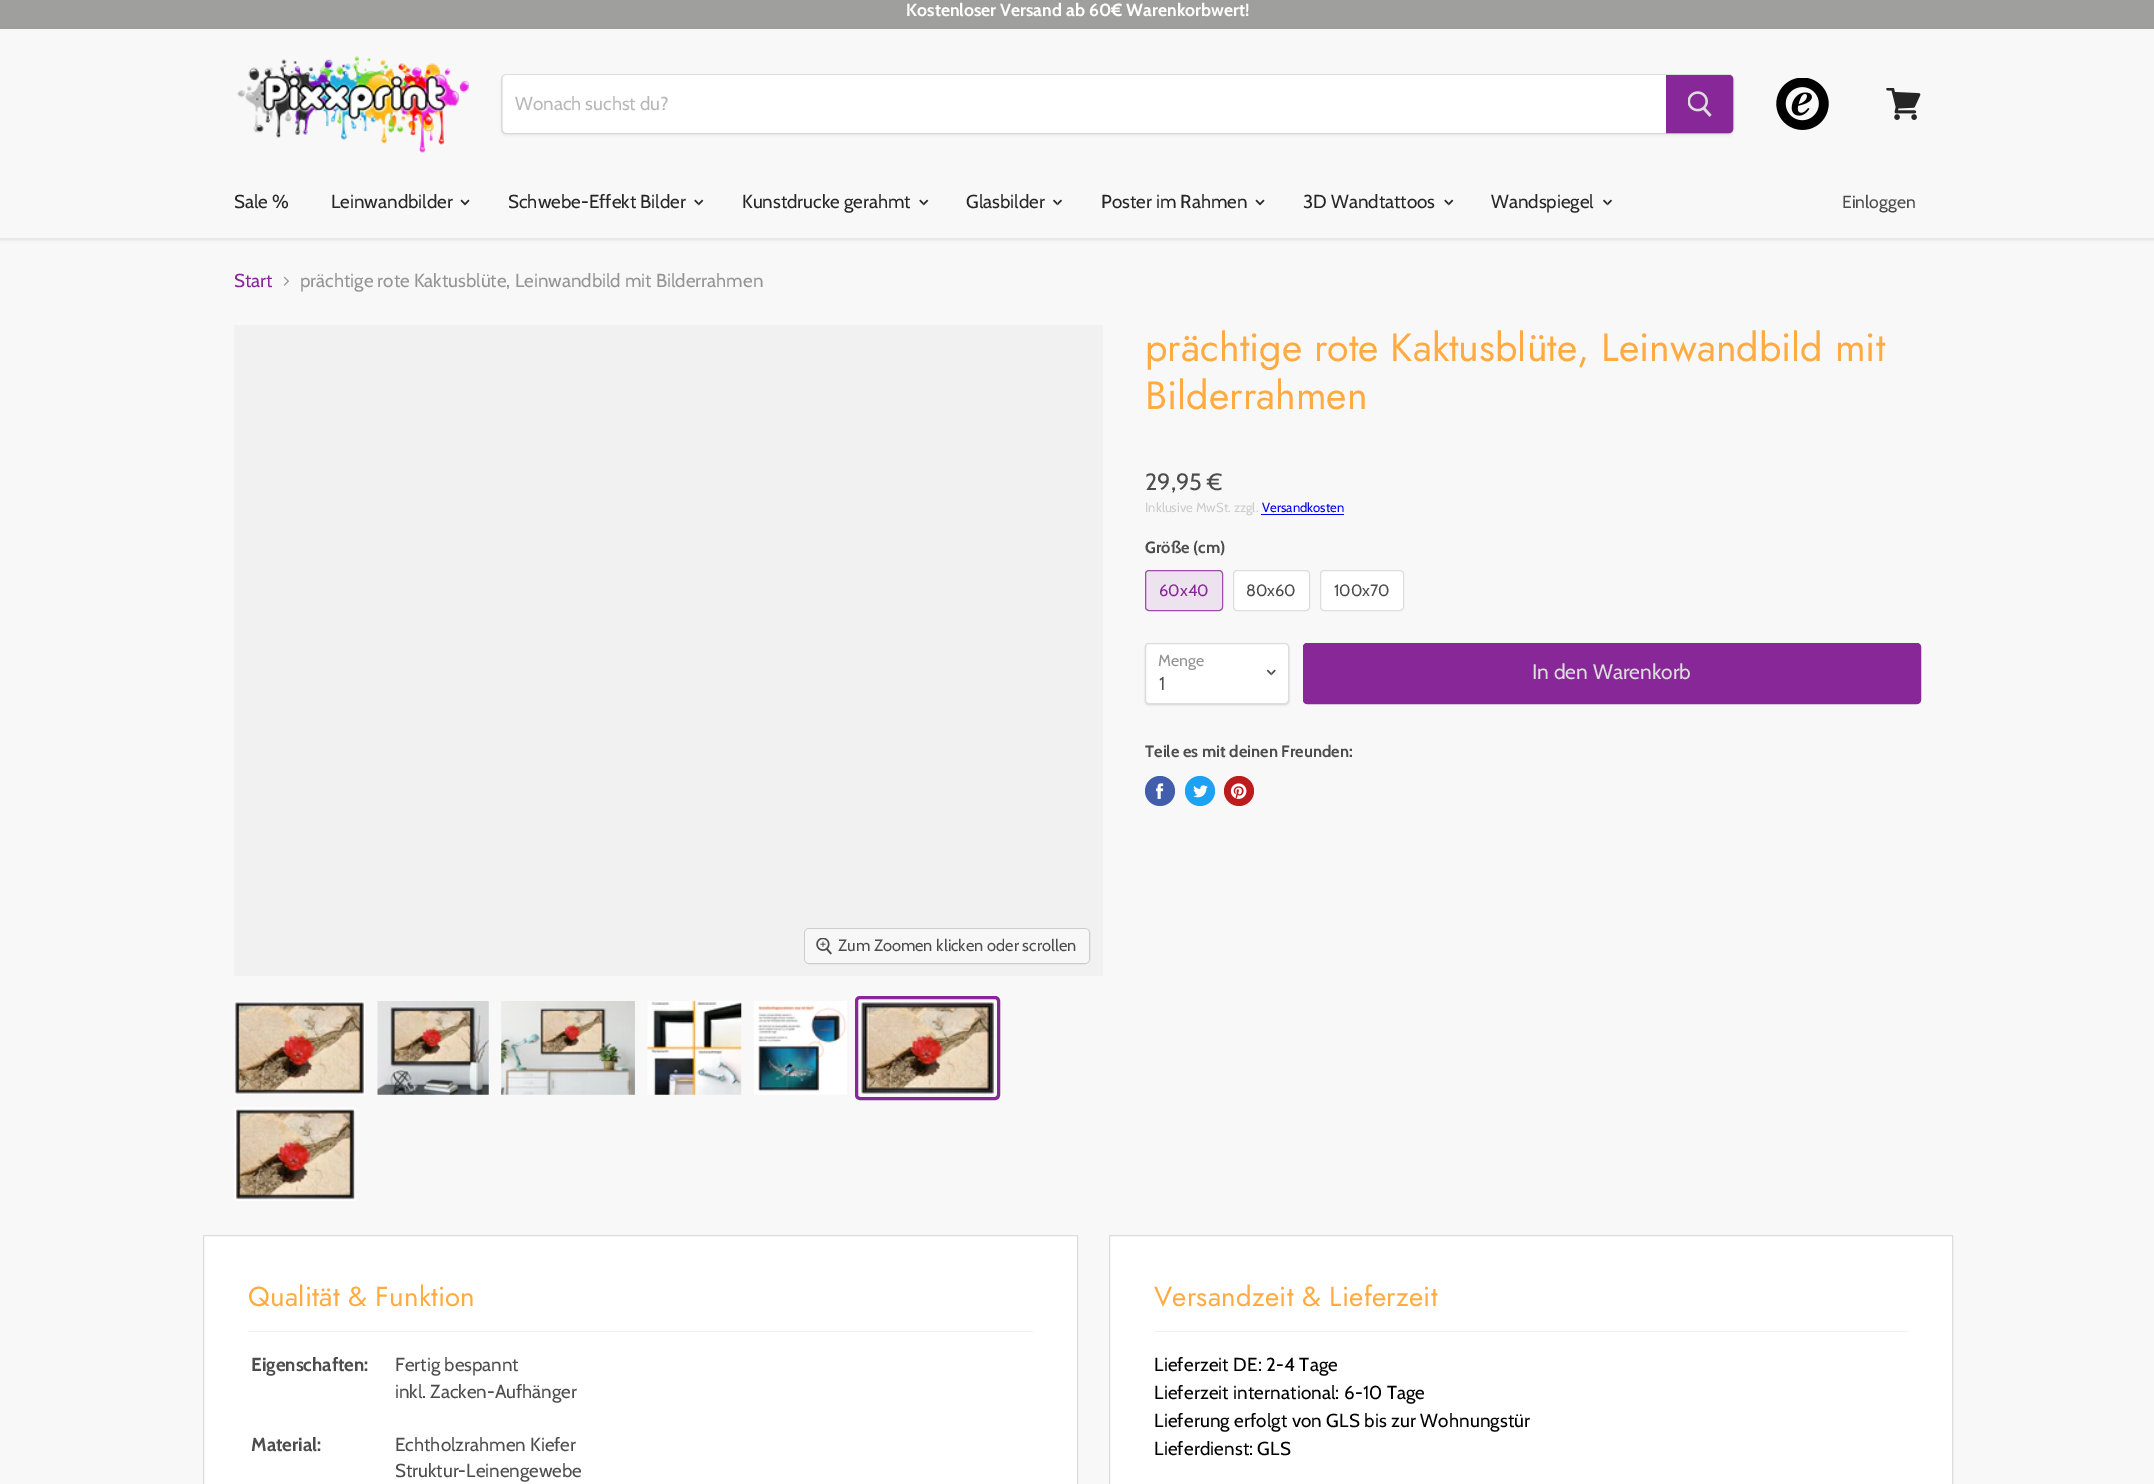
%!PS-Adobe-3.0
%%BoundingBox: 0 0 2154 1484
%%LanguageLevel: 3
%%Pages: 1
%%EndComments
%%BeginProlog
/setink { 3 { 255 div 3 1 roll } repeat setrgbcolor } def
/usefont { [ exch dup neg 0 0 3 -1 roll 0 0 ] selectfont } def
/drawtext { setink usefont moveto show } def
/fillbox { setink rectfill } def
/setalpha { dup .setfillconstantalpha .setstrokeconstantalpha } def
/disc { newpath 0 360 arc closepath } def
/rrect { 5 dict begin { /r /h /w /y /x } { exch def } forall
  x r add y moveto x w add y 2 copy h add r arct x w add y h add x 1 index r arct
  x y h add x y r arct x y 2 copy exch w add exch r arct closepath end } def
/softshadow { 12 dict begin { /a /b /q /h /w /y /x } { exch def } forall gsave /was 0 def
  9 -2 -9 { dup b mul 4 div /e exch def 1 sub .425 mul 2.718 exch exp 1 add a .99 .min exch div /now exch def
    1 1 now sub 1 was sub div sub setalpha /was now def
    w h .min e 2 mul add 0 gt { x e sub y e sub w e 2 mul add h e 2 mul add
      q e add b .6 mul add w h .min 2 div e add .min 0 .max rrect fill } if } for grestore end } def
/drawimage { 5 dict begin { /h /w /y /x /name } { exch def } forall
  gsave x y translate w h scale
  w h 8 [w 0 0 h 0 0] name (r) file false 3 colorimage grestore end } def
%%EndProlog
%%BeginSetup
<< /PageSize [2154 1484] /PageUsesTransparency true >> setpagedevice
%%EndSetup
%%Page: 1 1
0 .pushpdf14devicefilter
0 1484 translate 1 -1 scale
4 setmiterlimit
0 0 2154 1484 248 248 248 fillbox
0 0 2154 29 159 159 158 fillbox
(Kostenloser Versand ab 60€ Warenkorbwert!) 906 16 /Cabin-Bold 17.6 255 255 255 drawtext
124 124 124 setink
0 30 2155 209 0 2.5 0.25 softshadow
0 29 2154 209 248 248 248 fillbox
(assets/img1.rgb) 237 56 232 97 drawimage
124 124 124 setink
501 76 1233 60 5 2 0.11 softshadow
0.2 setalpha
501.5 74.5 1232 59 4.5 rrect stroke
1 setalpha
255 255 255 setink
507 75 moveto 1666 75 lineto 1666 133 lineto 507 133 lineto 505 133 503 131 503 129 curveto 503 79 lineto 503 77 505 75 507 75 curveto closepath fill
(Wonach suchst du?) 515 110 /Cabin-Regular 18.75 184 184 184 drawtext
136 39 152 setink
1666.5 75.5 moveto 1729 75.5 lineto 1731 75.5 1732.5 77 1732.5 79 curveto 1732.5 129 lineto 1732.5 131 1731 132.5 1729 132.5 curveto 1666.5 132.5 lineto closepath gsave fill grestore
stroke
(assets/img2.rgb) 1688 91 24 26 drawimage
(assets/img3.rgb) 1776 78 53 52 drawimage
(assets/img4.rgb) 1886 88 35 32 drawimage
(Sale %) 234 208 /Cabin-Regular 18.75 38 38 38 drawtext
(Leinwandbilder) 331 208 /Cabin-Regular 18.75 38 38 38 drawtext
(assets/img5.rgb) 460 199 10 7 drawimage
(Schwebe-Effekt Bilder) 508 208 /Cabin-Regular 18.75 38 38 38 drawtext
(assets/img6.rgb) 694 199 10 7 drawimage
(Kunstdrucke gerahmt) 742 208 /Cabin-Regular 18.75 38 38 38 drawtext
(assets/img6.rgb) 919 199 10 7 drawimage
(Glasbilder) 966 208 /Cabin-Regular 18.75 38 38 38 drawtext
(assets/img7.rgb) 1053 199 9 7 drawimage
(Poster im Rahmen) 1101 208 /Cabin-Regular 18.75 38 38 38 drawtext
(assets/img5.rgb) 1255 199 10 7 drawimage
(3D Wandtattoos) 1303 208 /Cabin-Regular 18.75 38 38 38 drawtext
(assets/img6.rgb) 1444 199 10 7 drawimage
(Wandspiegel) 1491 208 /Cabin-Regular 18.75 38 38 38 drawtext
(assets/img7.rgb) 1603 199 9 7 drawimage
(Einloggen) 1842 208 /Cabin-Regular 17.6 77 77 77 drawtext
(Start) 234 287 /Cabin-Regular 18.75 136 39 152 drawtext
(assets/img8.rgb) 283 276 6 10 drawimage
(prächtige rote Kaktusblüte, Leinwandbild mit Bilderrahmen) 300 287 /Cabin-Regular 18.75 148 148 148 drawtext
(prächtige rote Kaktusblüte, Leinwandbild mit) 1145 361 /Jost-Regular 39.4 255 171 65 drawtext
(Bilderrahmen) 1145 409 /Jost-Regular 39.4 255 171 65 drawtext
(29,95 €) 1145 490 /Cabin-Regular 23.5 77 77 77 drawtext
(Inklusive MwSt. zzgl.) 1145 512 /Cabin-Regular 13.1 204 204 204 drawtext
1261 514 83 1 0 0 238 fillbox
(Versandkosten) 1262 512 /Cabin-Regular 13.1 0 0 238 drawtext
(Größe \(cm\)) 1145 553 /Cabin-Bold 16.4 77 77 77 drawtext
237 227 238 setink
1145 570 78 41 4 rrect fill
0.8 setalpha
136 39 152 setink
1145.5 570.5 77 40 3.5 rrect stroke
1 setalpha
(60x40) 1159 596 /Cabin-Regular 16.4 136 39 152 drawtext
255 255 255 setink
1233.5 570.5 76 40 3.5 rrect gsave fill grestore
221 221 221 setink
stroke
(80x60) 1246 596 /Cabin-Regular 16.4 77 77 77 drawtext
255 255 255 setink
1320.5 570.5 83 40 3.5 rrect gsave fill grestore
221 221 221 setink
stroke
(100x70) 1334 596 /Cabin-Regular 16.4 77 77 77 drawtext
0 0 0 setink
1145 644 144 61 4 1 0.15 softshadow
255 255 255 setink
1145.5 643.5 143 60 3.5 rrect gsave fill grestore
221 221 221 setink
stroke
(Menge) 1158 666 /Cabin-Regular 16 148 148 148 drawtext
(assets/img9.rgb) 1266 669 10 7 drawimage
(1) 1159 690 /Cabin-Regular 18.75 77 77 77 drawtext
136 39 152 setink
1303.5 643.5 617 60 3.5 rrect gsave fill grestore
stroke
(In den Warenkorb) 1532 679 /Cabin-Regular 21 221 221 221 drawtext
(Teile es mit deinen Freunden:) 1145 757 /Cabin-Bold 16.4 77 77 77 drawtext
66 93 171 setink
1160 791 15 disc fill
(assets/img10.rgb) 1156 783 8 16 drawimage
29 161 242 setink
1200 791 15 disc fill
(assets/img11.rgb) 1193 785 15 13 drawimage
189 28 28 setink
1239 791 15 disc fill
(assets/img12.rgb) 1230 783 17 16 drawimage
234 325 869 651 241 241 241 fillbox
205 205 205 setink
804.5 928.5 285 35 4.5 rrect stroke
0.9 setalpha
248 248 248 setink
805 929 284 34 4 rrect fill
1 setalpha
(assets/img13.rgb) 816 938 16 17 drawimage
(Zum Zoomen klicken oder scrollen) 838 951 /Cabin-Regular 16.4 77 77 77 drawtext
(assets/img14.rgb) 234 1001 131 94 drawimage
(assets/img15.rgb) 377 1001 112 94 drawimage
(assets/img16.rgb) 501 1001 134 94 drawimage
(assets/img17.rgb) 647 1001 95 94 drawimage
(assets/img18.rgb) 754 1001 93 94 drawimage
136 39 152 setink
3 setlinewidth
856.5 997.5 142 101 3.5 rrect stroke
(assets/img19.rgb) 860 1001 135 94 drawimage
(assets/img20.rgb) 234 1107 122 94 drawimage
255 255 255 setink
203.5 1235.5 moveto 1077.5 1235.5 lineto 1077.5 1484.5 lineto 203.5 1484.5 lineto closepath gsave fill grestore
221 221 221 setink
1 setlinewidth
stroke
248 1331 785 1 240 240 240 fillbox
/Jost-Regular 27.5 usefont
255 171 65 setink
248 1306 moveto 0.25 0 (Qualität & Funktion) ashow
(Eigenschaften:) 251 1371 /Cabin-Bold 18.75 77 77 77 drawtext
(Fertig bespannt) 395 1371 /Cabin-Regular 18.75 77 77 77 drawtext
(inkl. Zacken-Aufhänger) 395 1398 /Cabin-Regular 18.75 77 77 77 drawtext
(Material:) 251 1451 /Cabin-Bold 18.75 77 77 77 drawtext
(Echtholzrahmen Kiefer) 395 1451 /Cabin-Regular 18.75 77 77 77 drawtext
(Struktur-Leinengewebe) 395 1477 /Cabin-Regular 18.75 77 77 77 drawtext
255 255 255 setink
1109.5 1235.5 moveto 1952.5 1235.5 lineto 1952.5 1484.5 lineto 1109.5 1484.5 lineto closepath gsave fill grestore
221 221 221 setink
stroke
1154 1331 754 1 240 240 240 fillbox
/Jost-Regular 27.5 usefont
255 171 65 setink
1154 1306 moveto 0.25 0 (Versandzeit & Lieferzeit) ashow
/Cabin-Regular 18.75 usefont
0 0 0 setink
1154 1371 moveto 0.15 0 (Lieferzeit DE: 2-4 Tage) ashow
1154 1399 moveto 0.15 0 (Lieferzeit international: 6-10 Tage) ashow
1154 1427 moveto 0.15 0 (Lieferung erfolgt von GLS bis zur Wohnungstür) ashow
1154 1455 moveto 0.15 0 (Lieferdienst: GLS) ashow
.poppdf14devicefilter showpage
%%EOF
